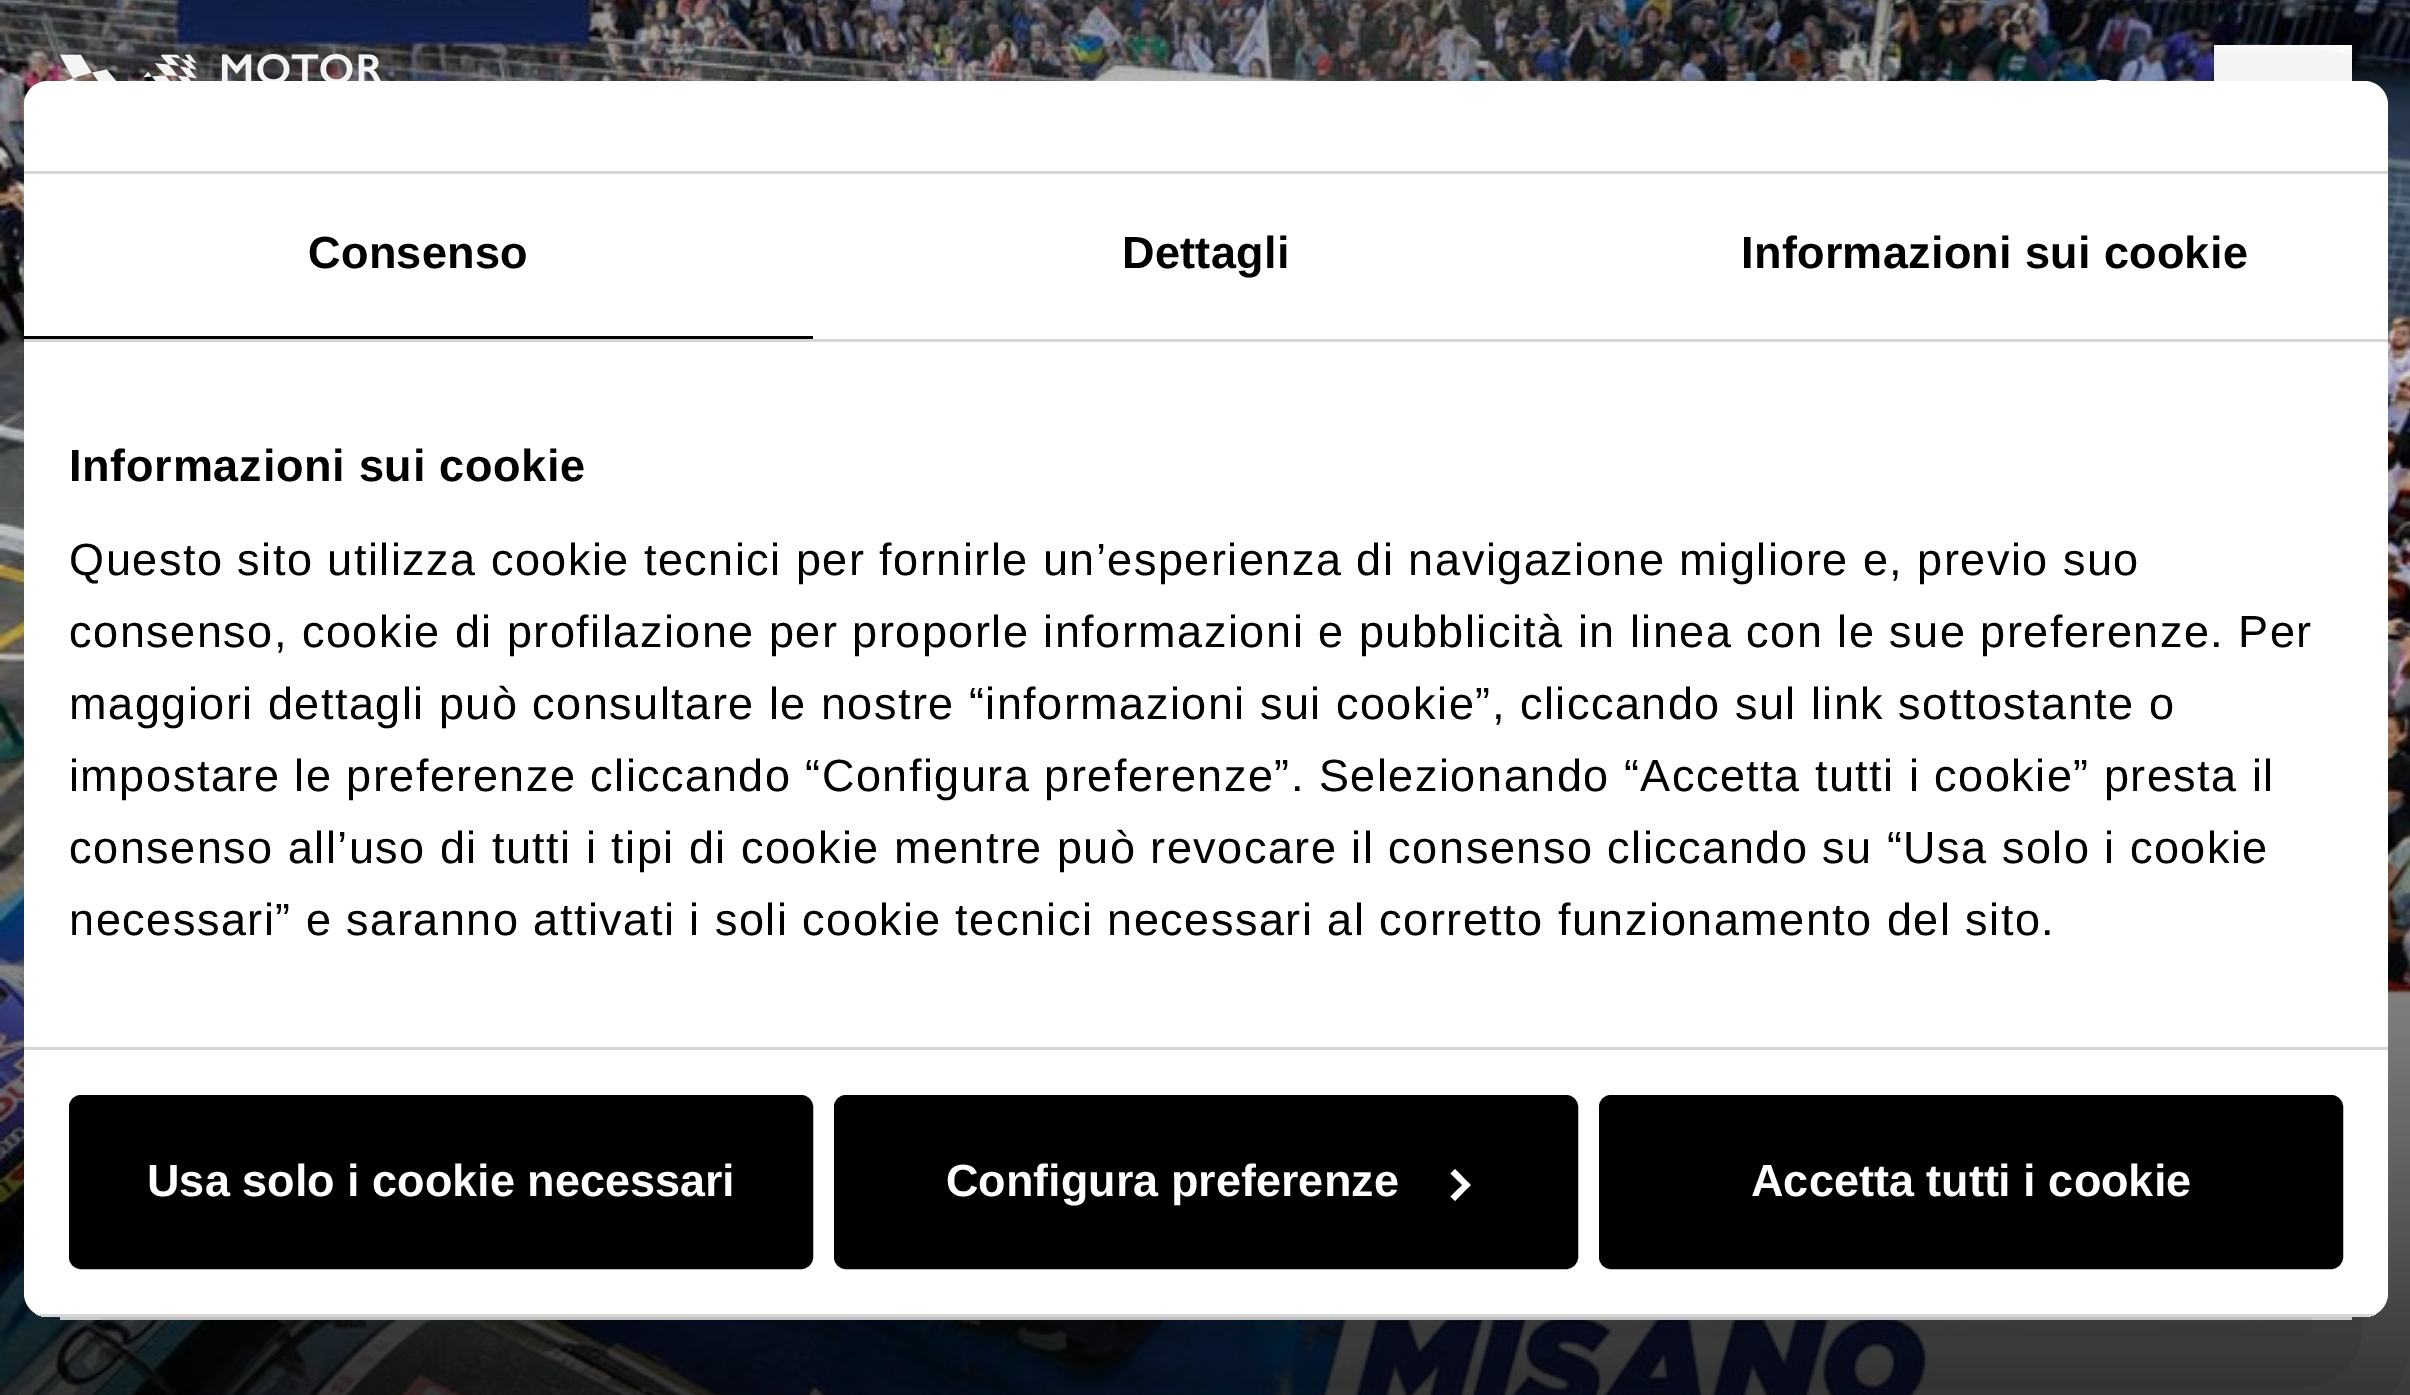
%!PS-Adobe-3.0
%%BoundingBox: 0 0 2410 1395
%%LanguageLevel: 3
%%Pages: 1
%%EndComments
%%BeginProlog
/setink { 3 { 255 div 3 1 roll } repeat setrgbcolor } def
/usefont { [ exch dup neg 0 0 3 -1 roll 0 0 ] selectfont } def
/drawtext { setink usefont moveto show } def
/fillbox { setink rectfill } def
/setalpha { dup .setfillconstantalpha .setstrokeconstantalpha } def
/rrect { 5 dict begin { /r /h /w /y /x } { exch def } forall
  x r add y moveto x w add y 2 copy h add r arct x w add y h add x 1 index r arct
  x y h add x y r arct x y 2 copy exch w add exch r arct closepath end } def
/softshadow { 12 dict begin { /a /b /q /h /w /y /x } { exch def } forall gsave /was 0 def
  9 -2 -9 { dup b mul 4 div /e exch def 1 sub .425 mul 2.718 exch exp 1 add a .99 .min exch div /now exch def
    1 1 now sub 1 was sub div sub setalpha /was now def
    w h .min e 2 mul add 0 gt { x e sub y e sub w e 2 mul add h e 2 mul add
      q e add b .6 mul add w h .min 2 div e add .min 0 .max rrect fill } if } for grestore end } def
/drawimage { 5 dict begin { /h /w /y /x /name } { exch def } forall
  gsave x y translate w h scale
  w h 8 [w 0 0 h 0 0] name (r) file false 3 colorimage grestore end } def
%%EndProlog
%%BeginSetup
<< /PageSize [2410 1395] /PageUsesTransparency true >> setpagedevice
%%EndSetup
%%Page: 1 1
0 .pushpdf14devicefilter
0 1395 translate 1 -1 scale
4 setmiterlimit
0 0 2410 1395 255 255 255 fillbox
(assets/img1.rgb) 0 0 2410 1395 drawimage
60 1317 2292 3 255 255 255 fillbox
(assets/img2.rgb) 60 54 321 27 drawimage
2214 45 138 36 255 255 255 fillbox
2122 104 moveto 2122 79 2085 79 2085 104 curveto 2085 129 2122 129 2122 104 curveto closepath 2118 123 moveto 2108 132 2091 129 2083 117 curveto 2080 113 2079 107 2079 101 curveto 2082 74 2122 72 2127 99 curveto 2129 106 2127 113 2122 119 curveto 2139 136 lineto 2135 140 lineto closepath fill
0 0 0 setink
24 177 2364 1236 24 102 0.3 softshadow
255 255 255 setink
24 81 2364 1236 24 rrect fill
24 171 2364 3 214 214 214 fillbox
24 339 2364 3 214 214 214 fillbox
24 336 789 3 0 0 0 fillbox
/LiberationSans-Bold 45 usefont
308 268 moveto 0.3 0 (Consenso) ashow
1122 268 moveto 0.3 0 (Dettagli) ashow
1741 268 moveto 0.3 0 (Informazioni sui cookie) ashow
24 1047 2364 3 214 214 214 fillbox
0 0 0 setink
69 481 moveto 0.75 0 (Informazioni sui cookie) ashow
/LiberationSans-Regular 45 usefont
69 575 moveto 1.5 0 (Questo sito utilizza cookie tecnici per fornirle un’esperienza di navigazione migliore e, previo suo) ashow
69 647 moveto 1.5 0 (consenso, cookie di profilazione per proporle informazioni e pubblicità in linea con le sue preferenze. Per) ashow
69 719 moveto 1.5 0 (maggiori dettagli può consultare le nostre “informazioni sui cookie”, cliccando sul link sottostante o) ashow
69 791 moveto 1.5 0 (impostare le preferenze cliccando “Configura preferenze”. Selezionando “Accetta tutti i cookie” presta il) ashow
69 863 moveto 1.5 0 (consenso all’uso di tutti i tipi di cookie mentre può revocare il consenso cliccando su “Usa solo i cookie) ashow
69 935 moveto 1.5 0 (necessari” e saranno attivati i soli cookie tecnici necessari al corretto funzionamento del sito.) ashow
gsave
24 81 2364 1236 24 rrect clip newpath
36 1314 2340 3 214 214 214 fillbox
grestore
72 1098 738 168 9 rrect gsave fill grestore
6 setlinewidth
stroke
(Usa solo i cookie necessari) 147 1196 /LiberationSans-Bold 45 255 255 255 drawtext
0 0 0 setink
837 1098 738 168 9 rrect gsave fill grestore
stroke
(Configura preferenze) 946 1196 /LiberationSans-Bold 45 255 255 255 drawtext
1455 1169 moveto 1470.5 1185 lineto 1466.5 1189 lineto 1450.5 1173.5 lineto closepath fill
1466.5 1181 moveto 1470.5 1185 lineto 1455 1201 lineto 1450.5 1196.5 lineto closepath fill
0 0 0 setink
1602 1098 738 168 9 rrect gsave fill grestore
stroke
(Accetta tutti i cookie) 1751 1196 /LiberationSans-Bold 45 255 255 255 drawtext
.poppdf14devicefilter showpage
%%EOF
